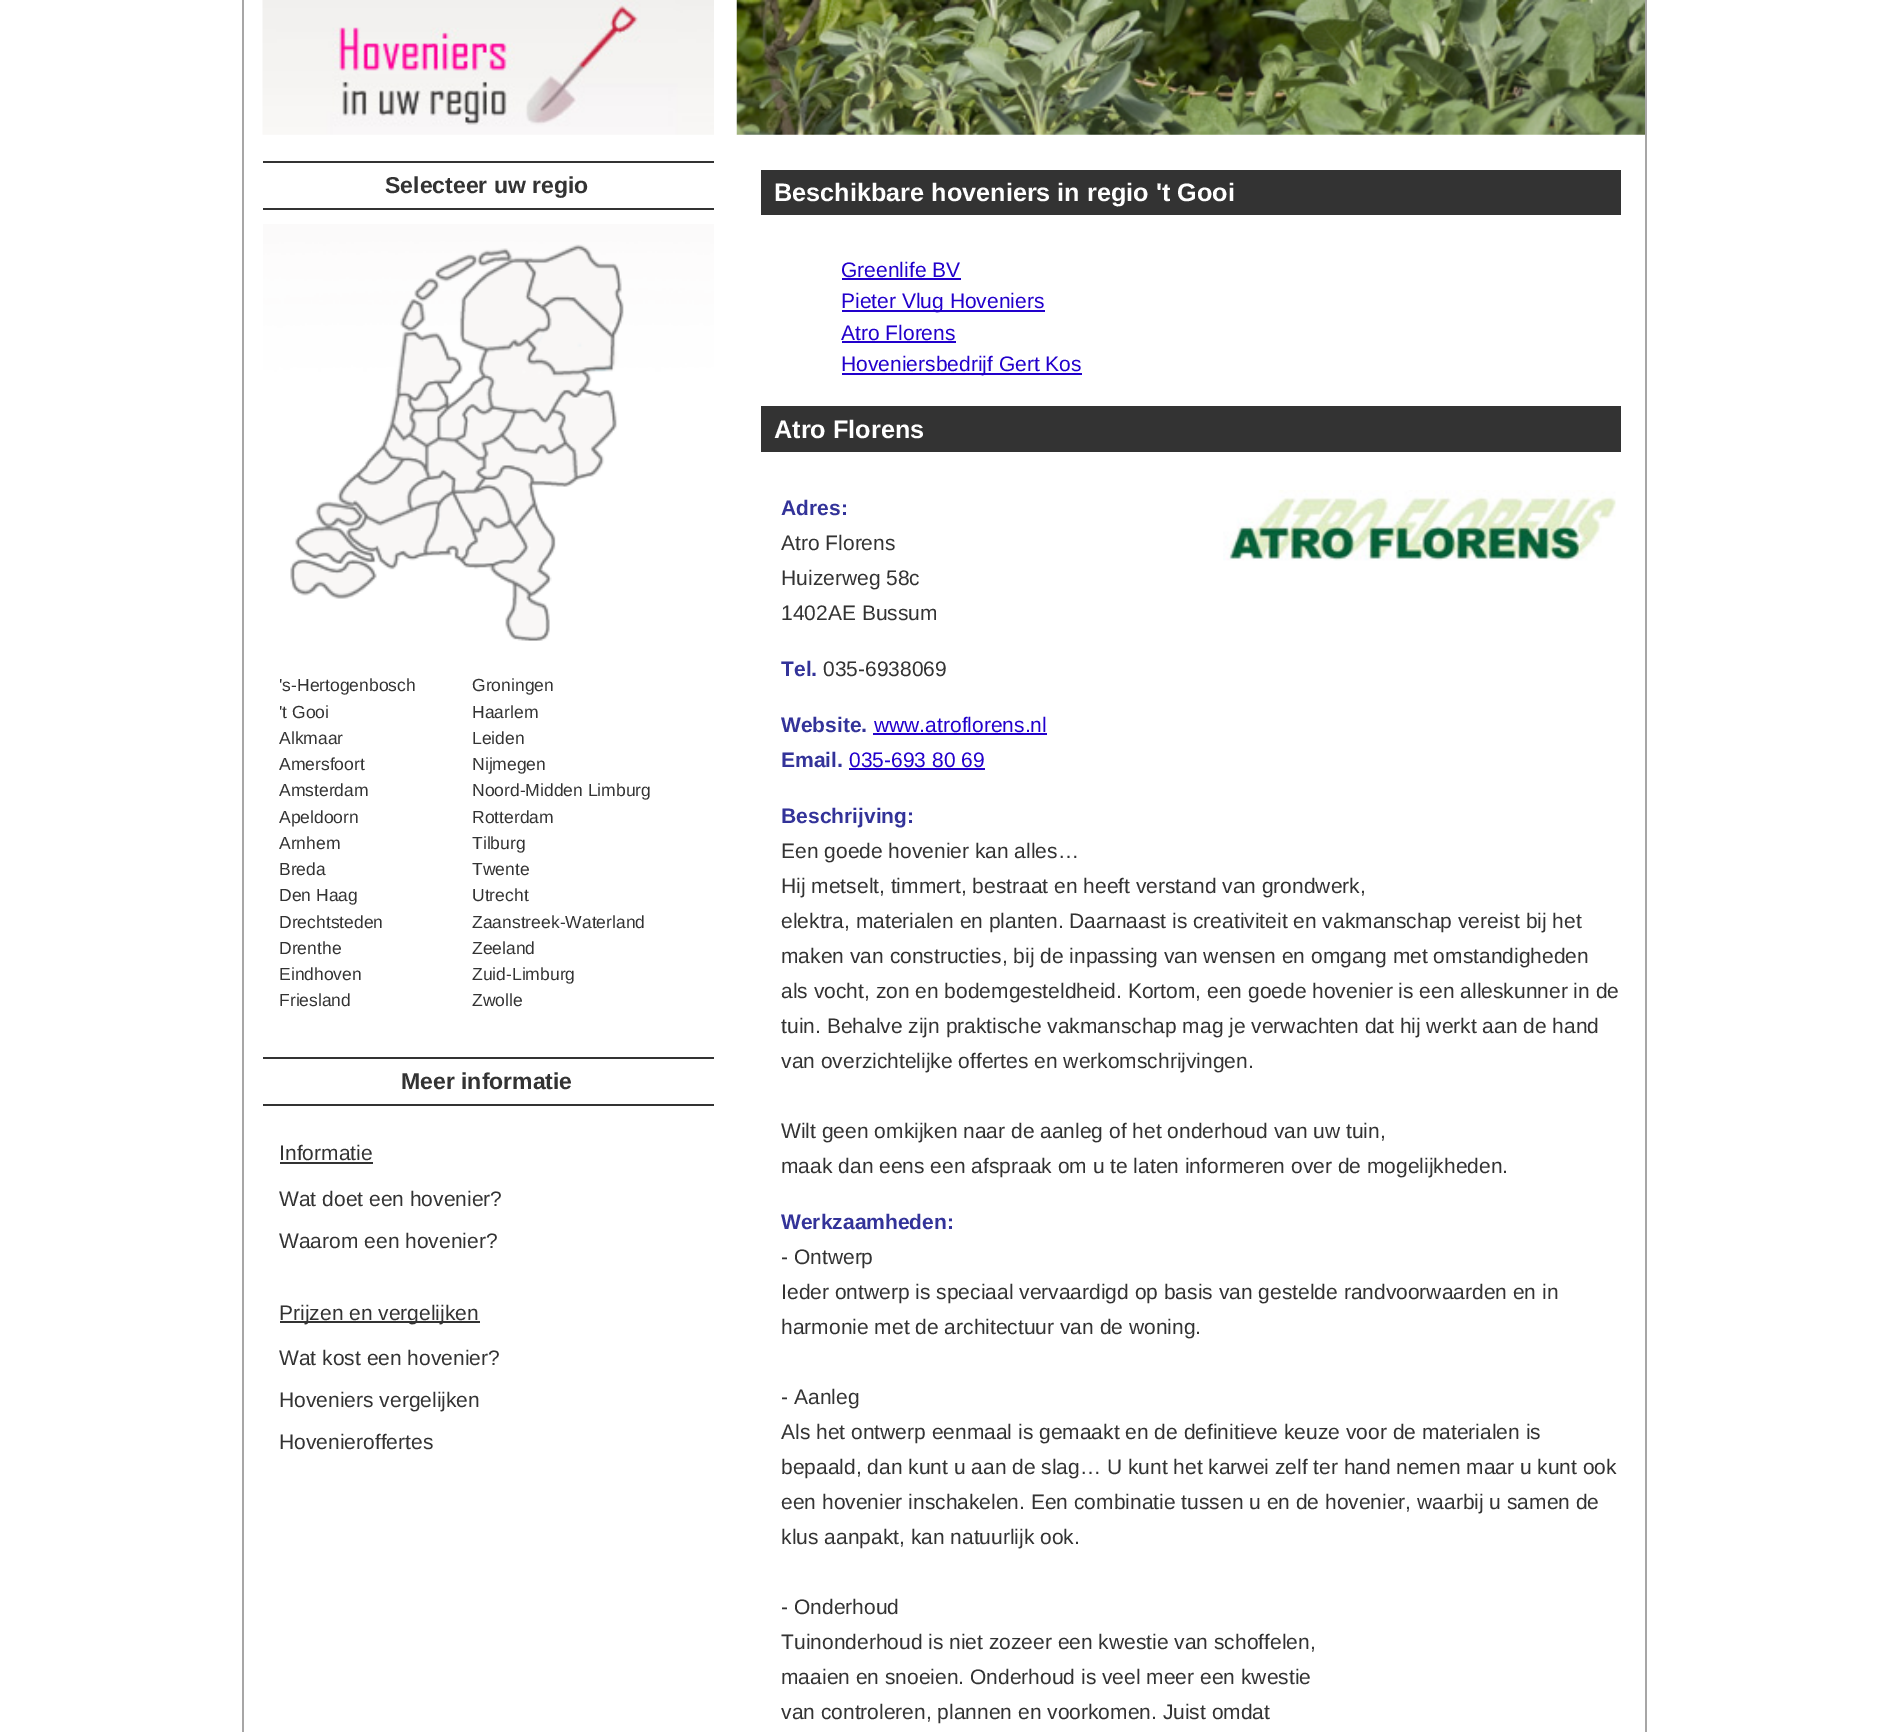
%!PS-Adobe-3.0
%%BoundingBox: 0 0 1885 1732
%%LanguageLevel: 3
%%Pages: 1
%%EndComments
%%BeginProlog
/setink { 3 { 255 div 3 1 roll } repeat setrgbcolor } def
/usefont { [ exch dup neg 0 0 3 -1 roll 0 0 ] selectfont } def
/drawtext { setink usefont moveto show } def
/fillbox { setink rectfill } def
/drawimage { 5 dict begin { /h /w /y /x /name } { exch def } forall
  gsave x y translate w h scale
  w h 8 [w 0 0 h 0 0] name (r) file false 3 colorimage grestore end } def
%%EndProlog
%%BeginSetup
<< /PageSize [1885 1732] >> setpagedevice
%%EndSetup
%%Page: 1 1
0 1732 translate 1 -1 scale
4 setmiterlimit
0 0 1885 1732 255 255 255 fillbox
1645 0 2 1732 167 166 166 fillbox
242 0 2 1732 167 166 166 fillbox
(assets/img1.rgb) 262 0 452 135 drawimage
263 161 451 2 51 51 51 fillbox
263 208 451 2 51 51 51 fillbox
(Selecteer uw regio) 385 193 /LiberationSans-Bold 23 51 51 51 drawtext
(assets/img2.rgb) 263 224 451 417 drawimage
('s-Hertogenbosch) 279 691 /LiberationSans-Regular 17.5 51 51 51 drawtext
(Groningen) 472 691 /LiberationSans-Regular 17.5 51 51 51 drawtext
('t Gooi) 279 718 /LiberationSans-Regular 17.5 51 51 51 drawtext
(Haarlem) 472 718 /LiberationSans-Regular 17.5 51 51 51 drawtext
(Alkmaar) 279 744 /LiberationSans-Regular 17.5 51 51 51 drawtext
(Leiden) 472 744 /LiberationSans-Regular 17.5 51 51 51 drawtext
(Amersfoort) 279 770 /LiberationSans-Regular 17.5 51 51 51 drawtext
(Nijmegen) 472 770 /LiberationSans-Regular 17.5 51 51 51 drawtext
(Amsterdam) 279 796 /LiberationSans-Regular 17.5 51 51 51 drawtext
(Noord-Midden Limburg) 472 796 /LiberationSans-Regular 17.5 51 51 51 drawtext
(Apeldoorn) 279 823 /LiberationSans-Regular 17.5 51 51 51 drawtext
(Rotterdam) 472 823 /LiberationSans-Regular 17.5 51 51 51 drawtext
(Arnhem) 279 849 /LiberationSans-Regular 17.5 51 51 51 drawtext
(Tilburg) 472 849 /LiberationSans-Regular 17.5 51 51 51 drawtext
(Breda) 279 875 /LiberationSans-Regular 17.5 51 51 51 drawtext
(Twente) 472 875 /LiberationSans-Regular 17.5 51 51 51 drawtext
(Den Haag) 279 901 /LiberationSans-Regular 17.5 51 51 51 drawtext
(Utrecht) 472 901 /LiberationSans-Regular 17.5 51 51 51 drawtext
(Drechtsteden) 279 928 /LiberationSans-Regular 17.5 51 51 51 drawtext
(Zaanstreek-Waterland) 472 928 /LiberationSans-Regular 17.5 51 51 51 drawtext
(Drenthe) 279 954 /LiberationSans-Regular 17.5 51 51 51 drawtext
(Zeeland) 472 954 /LiberationSans-Regular 17.5 51 51 51 drawtext
(Eindhoven) 279 980 /LiberationSans-Regular 17.5 51 51 51 drawtext
(Zuid-Limburg) 472 980 /LiberationSans-Regular 17.5 51 51 51 drawtext
(Friesland) 279 1006 /LiberationSans-Regular 17.5 51 51 51 drawtext
(Zwolle) 472 1006 /LiberationSans-Regular 17.5 51 51 51 drawtext
263 1057 451 2 51 51 51 fillbox
263 1104 451 2 51 51 51 fillbox
(Meer informatie) 401 1089 /LiberationSans-Bold 23 51 51 51 drawtext
(Informatie) 279 1160 /LiberationSans-Regular 21 51 51 51 drawtext
280 1162 93 2 51 51 51 fillbox
(Wat doet een hovenier?) 279 1206 /LiberationSans-Regular 21 51 51 51 drawtext
(Waarom een hovenier?) 279 1248 /LiberationSans-Regular 21 51 51 51 drawtext
280 1321 200 2 51 51 51 fillbox
(Prijzen en vergelijken) 279 1320 /LiberationSans-Regular 21 51 51 51 drawtext
(Wat kost een hovenier?) 279 1365 /LiberationSans-Regular 21 51 51 51 drawtext
(Hoveniers vergelijken) 279 1407 /LiberationSans-Regular 21 51 51 51 drawtext
(Hovenieroffertes) 279 1449 /LiberationSans-Regular 21 51 51 51 drawtext
(assets/img3.rgb) 736 0 909 135 drawimage
761 170 860 45 51 51 51 fillbox
(Beschikbare hoveniers in regio 't Gooi) 774 201 /LiberationSans-Bold 25.25 255 255 255 drawtext
(Greenlife BV) 841 277 /LiberationSans-Regular 21 34 0 204 drawtext
842 278 119 2 34 0 204 fillbox
842 310 203 2 34 0 204 fillbox
(Pieter Vlug Hoveniers) 841 308 /LiberationSans-Regular 21 34 0 204 drawtext
(Atro Florens) 841 340 /LiberationSans-Regular 21 34 0 204 drawtext
842 341 114 2 34 0 204 fillbox
842 373 240 2 34 0 204 fillbox
(Hoveniersbedrijf Gert Kos) 841 371 /LiberationSans-Regular 21 34 0 204 drawtext
761 406 860 46 51 51 51 fillbox
(Atro Florens) 774 438 /LiberationSans-Bold 25.25 255 255 255 drawtext
(Adres:) 781 515 /LiberationSans-Bold 21 51 51 153 drawtext
(assets/img4.rgb) 1223 490 393 71 drawimage
(Atro Florens) 781 550 /LiberationSans-Regular 21 51 51 51 drawtext
(Huizerweg 58c) 781 585 /LiberationSans-Regular 21 51 51 51 drawtext
(1402AE Bussum) 781 620 /LiberationSans-Regular 21 51 51 51 drawtext
(Tel.) 781 676 /LiberationSans-Bold 21 51 51 153 drawtext
(035-6938069) 823 676 /LiberationSans-Regular 21 51 51 51 drawtext
(Website.) 781 732 /LiberationSans-Bold 21 51 51 153 drawtext
(www.atroflorens.nl) 874 732 /LiberationSans-Regular 21 34 0 204 drawtext
873 733 174 2 34 0 204 fillbox
(Email.) 781 767 /LiberationSans-Bold 21 51 51 153 drawtext
(035-693 80 69) 849 767 /LiberationSans-Regular 21 34 0 204 drawtext
849 768 136 2 34 0 204 fillbox
(Beschrijving:) 781 823 /LiberationSans-Bold 21 51 51 153 drawtext
(Een goede hovenier kan alles…) 781 858 /LiberationSans-Regular 21 51 51 51 drawtext
(Hij metselt, timmert, bestraat en heeft verstand van grondwerk,) 781 893 /LiberationSans-Regular 21 51 51 51 drawtext
(elektra, materialen en planten. Daarnaast is creativiteit en vakmanschap vereist bij het) 781 928 /LiberationSans-Regular 21 51 51 51 drawtext
(maken van constructies, bij de inpassing van wensen en omgang met omstandigheden) 781 963 /LiberationSans-Regular 21 51 51 51 drawtext
(als vocht, zon en bodemgesteldheid. Kortom, een goede hovenier is een alleskunner in de) 781 998 /LiberationSans-Regular 21 51 51 51 drawtext
(tuin. Behalve zijn praktische vakmanschap mag je verwachten dat hij werkt aan de hand) 781 1033 /LiberationSans-Regular 21 51 51 51 drawtext
(van overzichtelijke offertes en werkomschrijvingen.) 781 1068 /LiberationSans-Regular 21 51 51 51 drawtext
(Wilt geen omkijken naar de aanleg of het onderhoud van uw tuin,) 781 1138 /LiberationSans-Regular 21 51 51 51 drawtext
(maak dan eens een afspraak om u te laten informeren over de mogelijkheden.) 781 1173 /LiberationSans-Regular 21 51 51 51 drawtext
(Werkzaamheden:) 781 1229 /LiberationSans-Bold 21 51 51 153 drawtext
(- Ontwerp) 781 1264 /LiberationSans-Regular 21 51 51 51 drawtext
(Ieder ontwerp is speciaal vervaardigd op basis van gestelde randvoorwaarden en in) 781 1299 /LiberationSans-Regular 21 51 51 51 drawtext
(harmonie met de architectuur van de woning.) 781 1334 /LiberationSans-Regular 21 51 51 51 drawtext
(- Aanleg) 781 1404 /LiberationSans-Regular 21 51 51 51 drawtext
(Als het ontwerp eenmaal is gemaakt en de definitieve keuze voor de materialen is) 781 1439 /LiberationSans-Regular 21 51 51 51 drawtext
(bepaald, dan kunt u aan de slag… U kunt het karwei zelf ter hand nemen maar u kunt ook) 781 1474 /LiberationSans-Regular 21 51 51 51 drawtext
(een hovenier inschakelen. Een combinatie tussen u en de hovenier, waarbij u samen de) 781 1509 /LiberationSans-Regular 21 51 51 51 drawtext
(klus aanpakt, kan natuurlijk ook.) 781 1544 /LiberationSans-Regular 21 51 51 51 drawtext
(- Onderhoud) 781 1614 /LiberationSans-Regular 21 51 51 51 drawtext
(Tuinonderhoud is niet zozeer een kwestie van schoffelen,) 781 1649 /LiberationSans-Regular 21 51 51 51 drawtext
(maaien en snoeien. Onderhoud is veel meer een kwestie) 781 1684 /LiberationSans-Regular 21 51 51 51 drawtext
(van controleren, plannen en voorkomen. Juist omdat) 781 1719 /LiberationSans-Regular 21 51 51 51 drawtext
showpage
%%EOF
